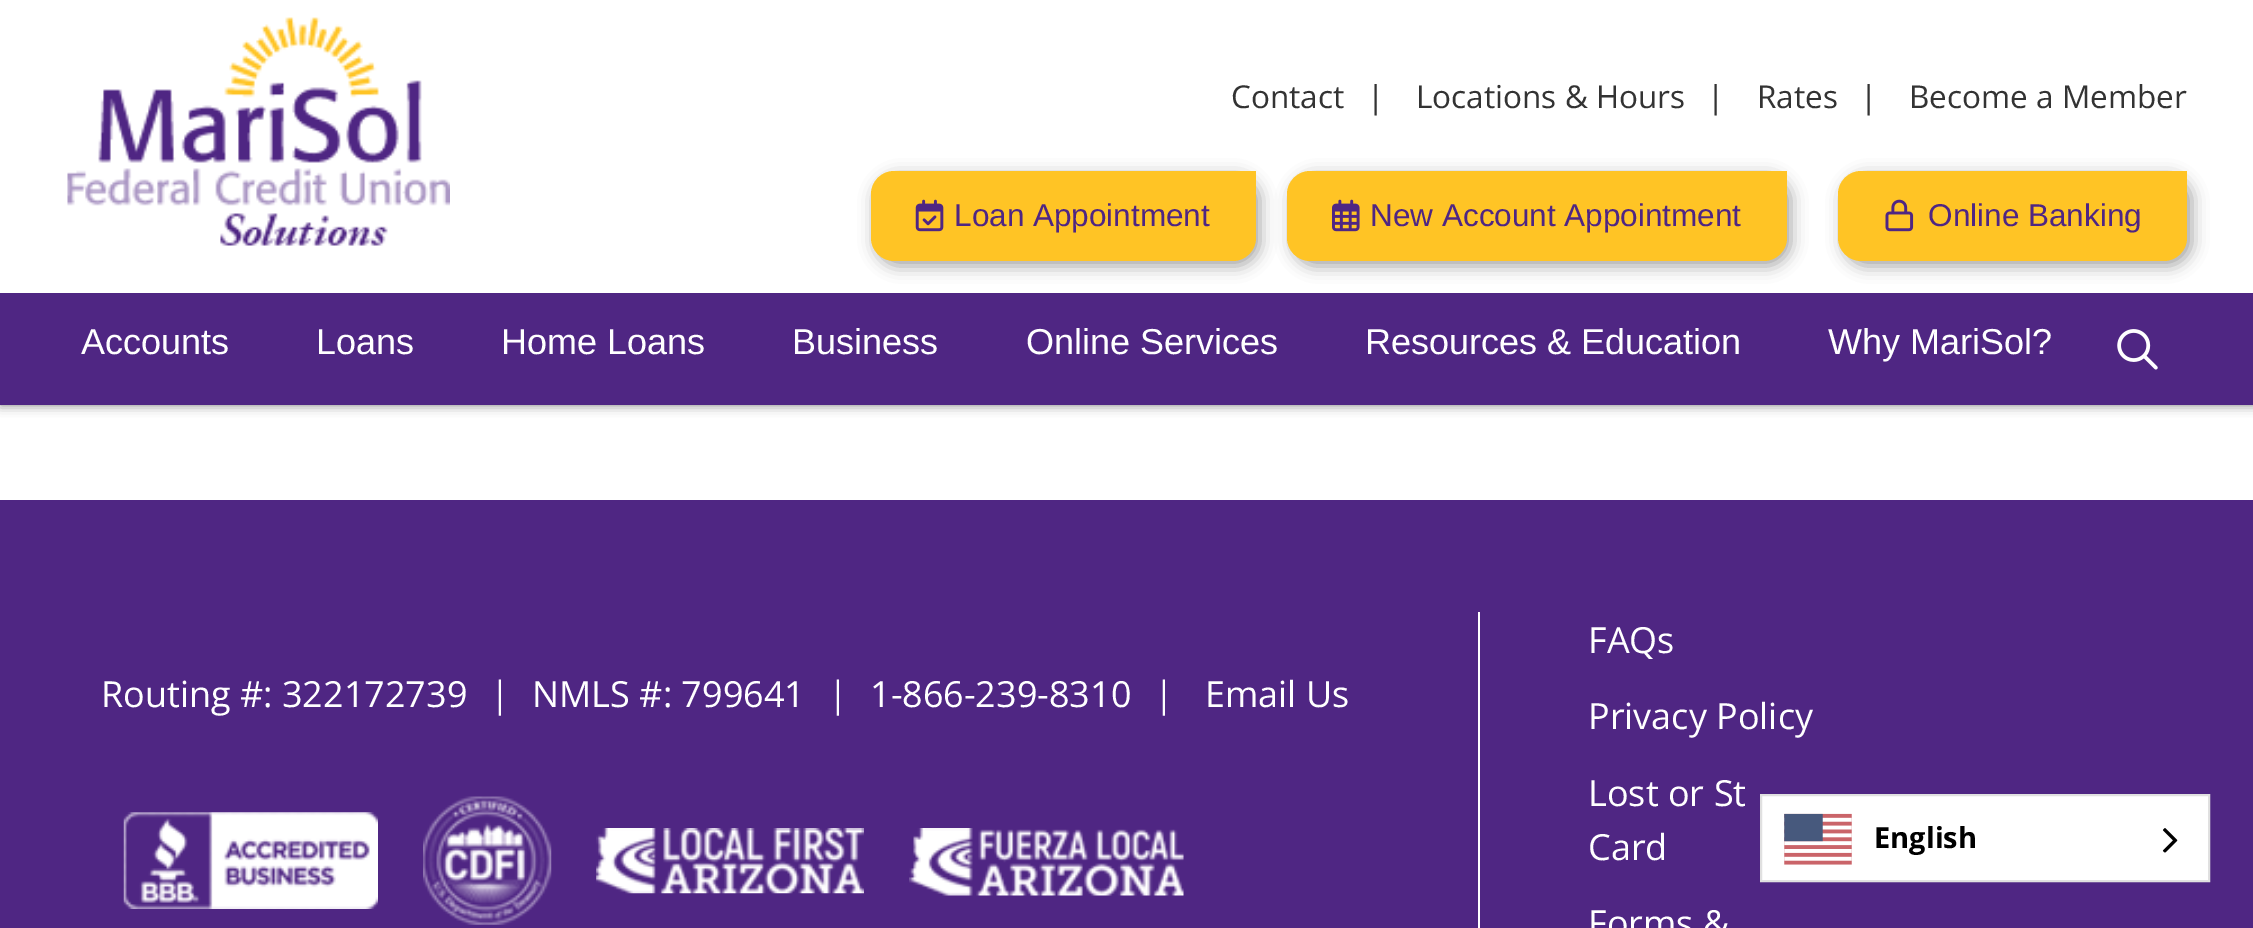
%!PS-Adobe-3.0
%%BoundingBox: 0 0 2253 928
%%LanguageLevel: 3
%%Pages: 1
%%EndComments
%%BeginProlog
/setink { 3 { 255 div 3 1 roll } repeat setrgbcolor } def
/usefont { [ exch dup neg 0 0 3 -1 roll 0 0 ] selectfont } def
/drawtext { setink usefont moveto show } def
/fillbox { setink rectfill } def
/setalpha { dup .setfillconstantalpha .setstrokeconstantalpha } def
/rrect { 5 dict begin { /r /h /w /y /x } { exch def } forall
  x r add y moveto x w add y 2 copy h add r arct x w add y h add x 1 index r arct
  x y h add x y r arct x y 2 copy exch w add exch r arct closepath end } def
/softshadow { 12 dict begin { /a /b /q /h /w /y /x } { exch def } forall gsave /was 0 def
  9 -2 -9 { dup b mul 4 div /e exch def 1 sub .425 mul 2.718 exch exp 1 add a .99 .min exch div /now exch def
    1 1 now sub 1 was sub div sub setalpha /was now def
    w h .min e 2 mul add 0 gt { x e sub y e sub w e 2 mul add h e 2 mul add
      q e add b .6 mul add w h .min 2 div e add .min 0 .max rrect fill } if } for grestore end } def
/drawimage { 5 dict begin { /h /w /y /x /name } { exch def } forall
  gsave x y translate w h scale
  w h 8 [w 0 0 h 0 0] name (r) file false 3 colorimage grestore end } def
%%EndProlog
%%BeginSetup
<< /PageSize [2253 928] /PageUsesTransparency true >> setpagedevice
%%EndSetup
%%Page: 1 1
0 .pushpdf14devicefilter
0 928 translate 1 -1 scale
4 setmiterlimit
0 0 2253 928 255 255 255 fillbox
0 0 0 setink
0 0 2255 405 0 5.5 0.5 softshadow
0 0 2253 293 255 255 255 fillbox
(assets/img1.rgb) 67 17 383 229 drawimage
(Contact) 1231 108 /OpenSans-Regular 31.5 51 51 51 drawtext
(|) 1367 108 /OpenSans-Regular 31.5 51 51 51 drawtext
(Locations & Hours) 1416 108 /OpenSans-Regular 31.5 51 51 51 drawtext
(|) 1707 108 /OpenSans-Regular 31.5 51 51 51 drawtext
(Rates) 1757 108 /OpenSans-Regular 31.5 51 51 51 drawtext
(|) 1860 108 /OpenSans-Regular 31.5 51 51 51 drawtext
(Become a Member) 1909 108 /OpenSans-Regular 31.5 51 51 51 drawtext
0 0 0 setink
875 176 385 90 23 8 0.35 softshadow
255 196 37 setink
894 171 moveto 1256 171 lineto 1256 238 lineto 1256 250.5 1245.5 261 1233 261 curveto 894 261 lineto 881.5 261 871 250.5 871 238 curveto 871 194 lineto 871 181.5 881.5 171 894 171 curveto closepath fill
(assets/img2.rgb) 915 199 29 33 drawimage
(Loan Appointment) 954 226 /LiberationSans-Regular 31.5 79 38 131 drawtext
0 0 0 setink
1292 176 499 90 23 8 0.35 softshadow
255 196 37 setink
1310 171 moveto 1787 171 lineto 1787 238 lineto 1787 250.5 1776.5 261 1764 261 curveto 1310 261 lineto 1297.5 261 1287 250.5 1287 238 curveto 1287 194 lineto 1287 181.5 1297.5 171 1310 171 curveto closepath fill
(assets/img3.rgb) 1332 199 28 33 drawimage
(New Account Appointment) 1370 226 /LiberationSans-Regular 31.5 79 38 131 drawtext
0 0 0 setink
1843 176 349 90 23 8 0.35 softshadow
255 196 37 setink
1861 171 moveto 2187 171 lineto 2187 238 lineto 2187 250.5 2176.5 261 2164 261 curveto 1861 261 lineto 1848.5 261 1838 250.5 1838 238 curveto 1838 194 lineto 1838 181.5 1848.5 171 1861 171 curveto closepath fill
(assets/img4.rgb) 1885 199 29 33 drawimage
(Online Banking) 1928 226 /LiberationSans-Regular 31.5 79 38 131 drawtext
0 293 2253 112 79 38 131 fillbox
(Accounts) 81 354 /LiberationSans-Regular 36 255 255 255 drawtext
(Loans) 316 354 /LiberationSans-Regular 36 255 255 255 drawtext
(Home Loans) 501 354 /LiberationSans-Regular 36 255 255 255 drawtext
(Business) 792 354 /LiberationSans-Regular 36 255 255 255 drawtext
(Online Services) 1026 354 /LiberationSans-Regular 36 255 255 255 drawtext
(Resources & Education) 1365 354 /LiberationSans-Regular 36 255 255 255 drawtext
(Why MariSol?) 1828 354 /LiberationSans-Regular 36 255 255 255 drawtext
(assets/img5.rgb) 2117 329 41 41 drawimage
0 500 2253 428 79 38 131 fillbox
1478 612 2 316 255 255 255 fillbox
(Routing #: 322172739) 101 707 /OpenSans-Regular 36 255 255 255 drawtext
(|) 490 707 /OpenSans-Regular 36 255 255 255 drawtext
(NMLS #: 799641) 532 707 /OpenSans-Regular 36 255 255 255 drawtext
(|) 828 707 /OpenSans-Regular 36 255 255 255 drawtext
(1-866-239-8310) 870 707 /OpenSans-Regular 36 255 255 255 drawtext
(|) 1154 707 /OpenSans-Regular 36 255 255 255 drawtext
(Email Us) 1205 707 /OpenSans-Regular 36 255 255 255 drawtext
(assets/img6.rgb) 123 812 255 97 drawimage
(assets/img7.rgb) 423 796 129 129 drawimage
(assets/img8.rgb) 596 828 268 66 drawimage
(assets/img9.rgb) 909 828 275 68 drawimage
(FAQs) 1588 653 /OpenSans-Regular 36 255 255 255 drawtext
(Privacy Policy) 1588 729 /OpenSans-Regular 36 255 255 255 drawtext
(Lost or St) 1588 806 /OpenSans-Regular 36 255 255 255 drawtext
(Card) 1588 860 /OpenSans-Regular 36 255 255 255 drawtext
(Forms &) 1588 936 /OpenSans-Regular 36 255 255 255 drawtext
1761 795 moveto 2209 795 lineto 2209 881 lineto 1761 881 lineto closepath gsave fill grestore
224 224 224 setink
2 setlinewidth
stroke
(assets/img10.rgb) 1784 813 68 52 drawimage
(English) 1874 848 /OpenSans-Bold 29 0 0 0 drawtext
(assets/img11.rgb) 2162 828 16 25 drawimage
.poppdf14devicefilter showpage
%%EOF
